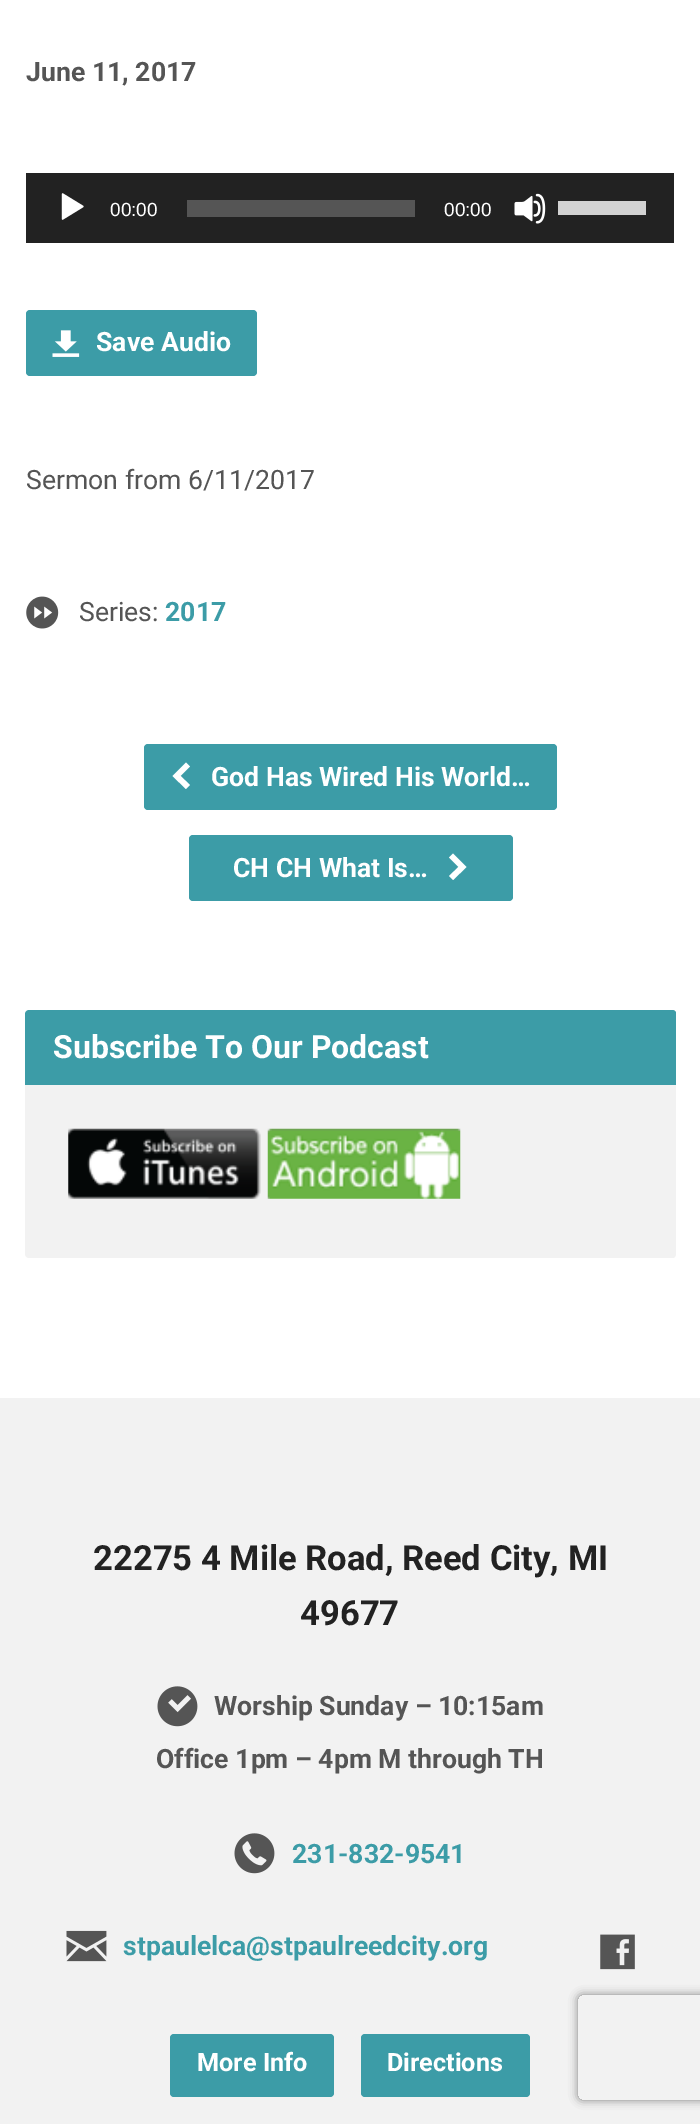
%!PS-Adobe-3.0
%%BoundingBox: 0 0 700 2124
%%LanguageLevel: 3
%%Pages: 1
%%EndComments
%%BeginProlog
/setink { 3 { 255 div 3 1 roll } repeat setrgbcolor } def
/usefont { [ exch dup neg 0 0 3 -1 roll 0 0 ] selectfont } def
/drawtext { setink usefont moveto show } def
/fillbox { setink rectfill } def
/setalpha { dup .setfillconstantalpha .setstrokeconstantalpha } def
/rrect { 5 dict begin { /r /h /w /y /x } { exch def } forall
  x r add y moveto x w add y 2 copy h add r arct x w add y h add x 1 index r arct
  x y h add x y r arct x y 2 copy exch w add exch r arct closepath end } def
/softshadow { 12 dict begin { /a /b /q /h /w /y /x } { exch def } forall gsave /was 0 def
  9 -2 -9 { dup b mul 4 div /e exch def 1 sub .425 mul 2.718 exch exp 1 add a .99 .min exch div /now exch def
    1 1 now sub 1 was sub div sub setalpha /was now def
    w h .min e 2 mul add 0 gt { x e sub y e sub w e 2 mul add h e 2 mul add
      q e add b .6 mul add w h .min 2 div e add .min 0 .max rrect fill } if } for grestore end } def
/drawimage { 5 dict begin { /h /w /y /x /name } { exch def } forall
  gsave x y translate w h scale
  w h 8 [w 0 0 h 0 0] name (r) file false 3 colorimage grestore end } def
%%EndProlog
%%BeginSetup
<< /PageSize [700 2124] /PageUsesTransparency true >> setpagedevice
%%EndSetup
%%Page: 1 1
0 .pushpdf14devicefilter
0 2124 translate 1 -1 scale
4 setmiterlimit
0 0 700 2124 255 255 255 fillbox
(June 11, 2017) 26 81 /Roboto-Bold 26.6 85 85 85 drawtext
26 173 648 70 34 34 34 fillbox
(assets/img1.rgb) 61 193 23 27 drawimage
(00:00) 110 216 /LiberationSans-Regular 19 255 255 255 drawtext
187 200 228 17 85 85 85 fillbox
(00:00) 444 216 /LiberationSans-Regular 19 255 255 255 drawtext
(assets/img2.rgb) 514 193 32 31 drawimage
558 201 88 14 210 210 210 fillbox
60 156 167 setink
26 310 231 66 4 rrect fill
(assets/img3.rgb) 52 330 28 27 drawimage
(Save Audio) 96 351 /Roboto-Bold 26.6 255 255 255 drawtext
(Sermon from 6/11/2017) 26 489 /Roboto-Regular 26.6 85 85 85 drawtext
(assets/img4.rgb) 26 596 33 33 drawimage
(Series:) 79 621 /Roboto-Regular 26.6 85 85 85 drawtext
(2017) 165 621 /Roboto-Bold 26.6 60 156 167 drawtext
144 744 413 66 4 rrect fill
255 255 255 setink
172.5 776 moveto 186 789 lineto 190 785 lineto 180.5 776 lineto 190 766.5 lineto 186 762.5 lineto closepath fill
(God Has Wired His World…) 211 786 /Roboto-Bold 26.6 255 255 255 drawtext
60 156 167 setink
189 835 324 66 4 rrect fill
(CH CH What Is…) 233 877 /Roboto-Bold 26.6 255 255 255 drawtext
466.5 867 moveto 453 853.5 lineto 449 857.5 lineto 458.5 867 lineto 449 876 lineto 453 880 lineto closepath fill
242 242 242 setink
29 1010 moveto 672 1010 lineto 674 1010 675 1011 676 1012 curveto 676 1255 lineto 675 1257 lineto 674 1258 673 1258 672 1258 curveto 29 1258 lineto 27 1258 25 1256 25 1254 curveto 25 1014 lineto 25 1012 27 1010 29 1010 curveto closepath fill
60 156 167 setink
29 1010 moveto 672 1010 lineto 674 1010 675 1011 676 1012 curveto 676 1085 lineto 25 1085 lineto 25 1014 lineto 25 1012 27 1010 29 1010 curveto closepath fill
(Subscribe To Our Podcast) 53 1058 /Roboto-Bold 32 255 255 255 drawtext
(assets/img5.rgb) 68 1128 193 71 drawimage
(assets/img6.rgb) 267 1128 194 71 drawimage
0 1398 700 726 242 242 242 fillbox
(22275 4 Mile Road, Reed City, MI) 93 1570 /Roboto-Bold 34.6 34 34 34 drawtext
(49677) 300 1625 /Roboto-Bold 34.6 34 34 34 drawtext
(assets/img7.rgb) 157 1686 41 41 drawimage
(Worship Sunday – 10:15am) 214 1715 /Roboto-Bold 26.6 85 85 85 drawtext
(Office 1pm – 4pm M through TH) 156 1768 /Roboto-Bold 26.6 85 85 85 drawtext
(assets/img8.rgb) 234 1833 41 41 drawimage
(231-832-9541) 292 1863 /Roboto-Bold 26.6 60 156 167 drawtext
(assets/img9.rgb) 66 1930 41 32 drawimage
(stpaulelca@stpaulreedcity.org) 123 1955 /Roboto-Bold 26.6 60 156 167 drawtext
(assets/img10.rgb) 600 1934 35 36 drawimage
170 2034 164 63 4 rrect fill
(More Info) 197 2071 /Roboto-Bold 25.25 255 255 255 drawtext
60 156 167 setink
361 2034 169 63 4 rrect fill
(Directions) 387 2071 /Roboto-Bold 25.25 255 255 255 drawtext
gsave
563 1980 moveto 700 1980 lineto 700 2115 lineto 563 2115 lineto closepath 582 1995 moveto 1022 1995 lineto 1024 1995 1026 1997 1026 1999 curveto 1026 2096 lineto 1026 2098 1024 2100 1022 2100 curveto 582 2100 lineto 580 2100 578 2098 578 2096 curveto 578 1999 lineto 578 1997 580 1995 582 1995 curveto closepath eoclip newpath
128 128 128 setink
578 1995 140 105 4 4.5 1 softshadow
grestore
.poppdf14devicefilter showpage
%%EOF
